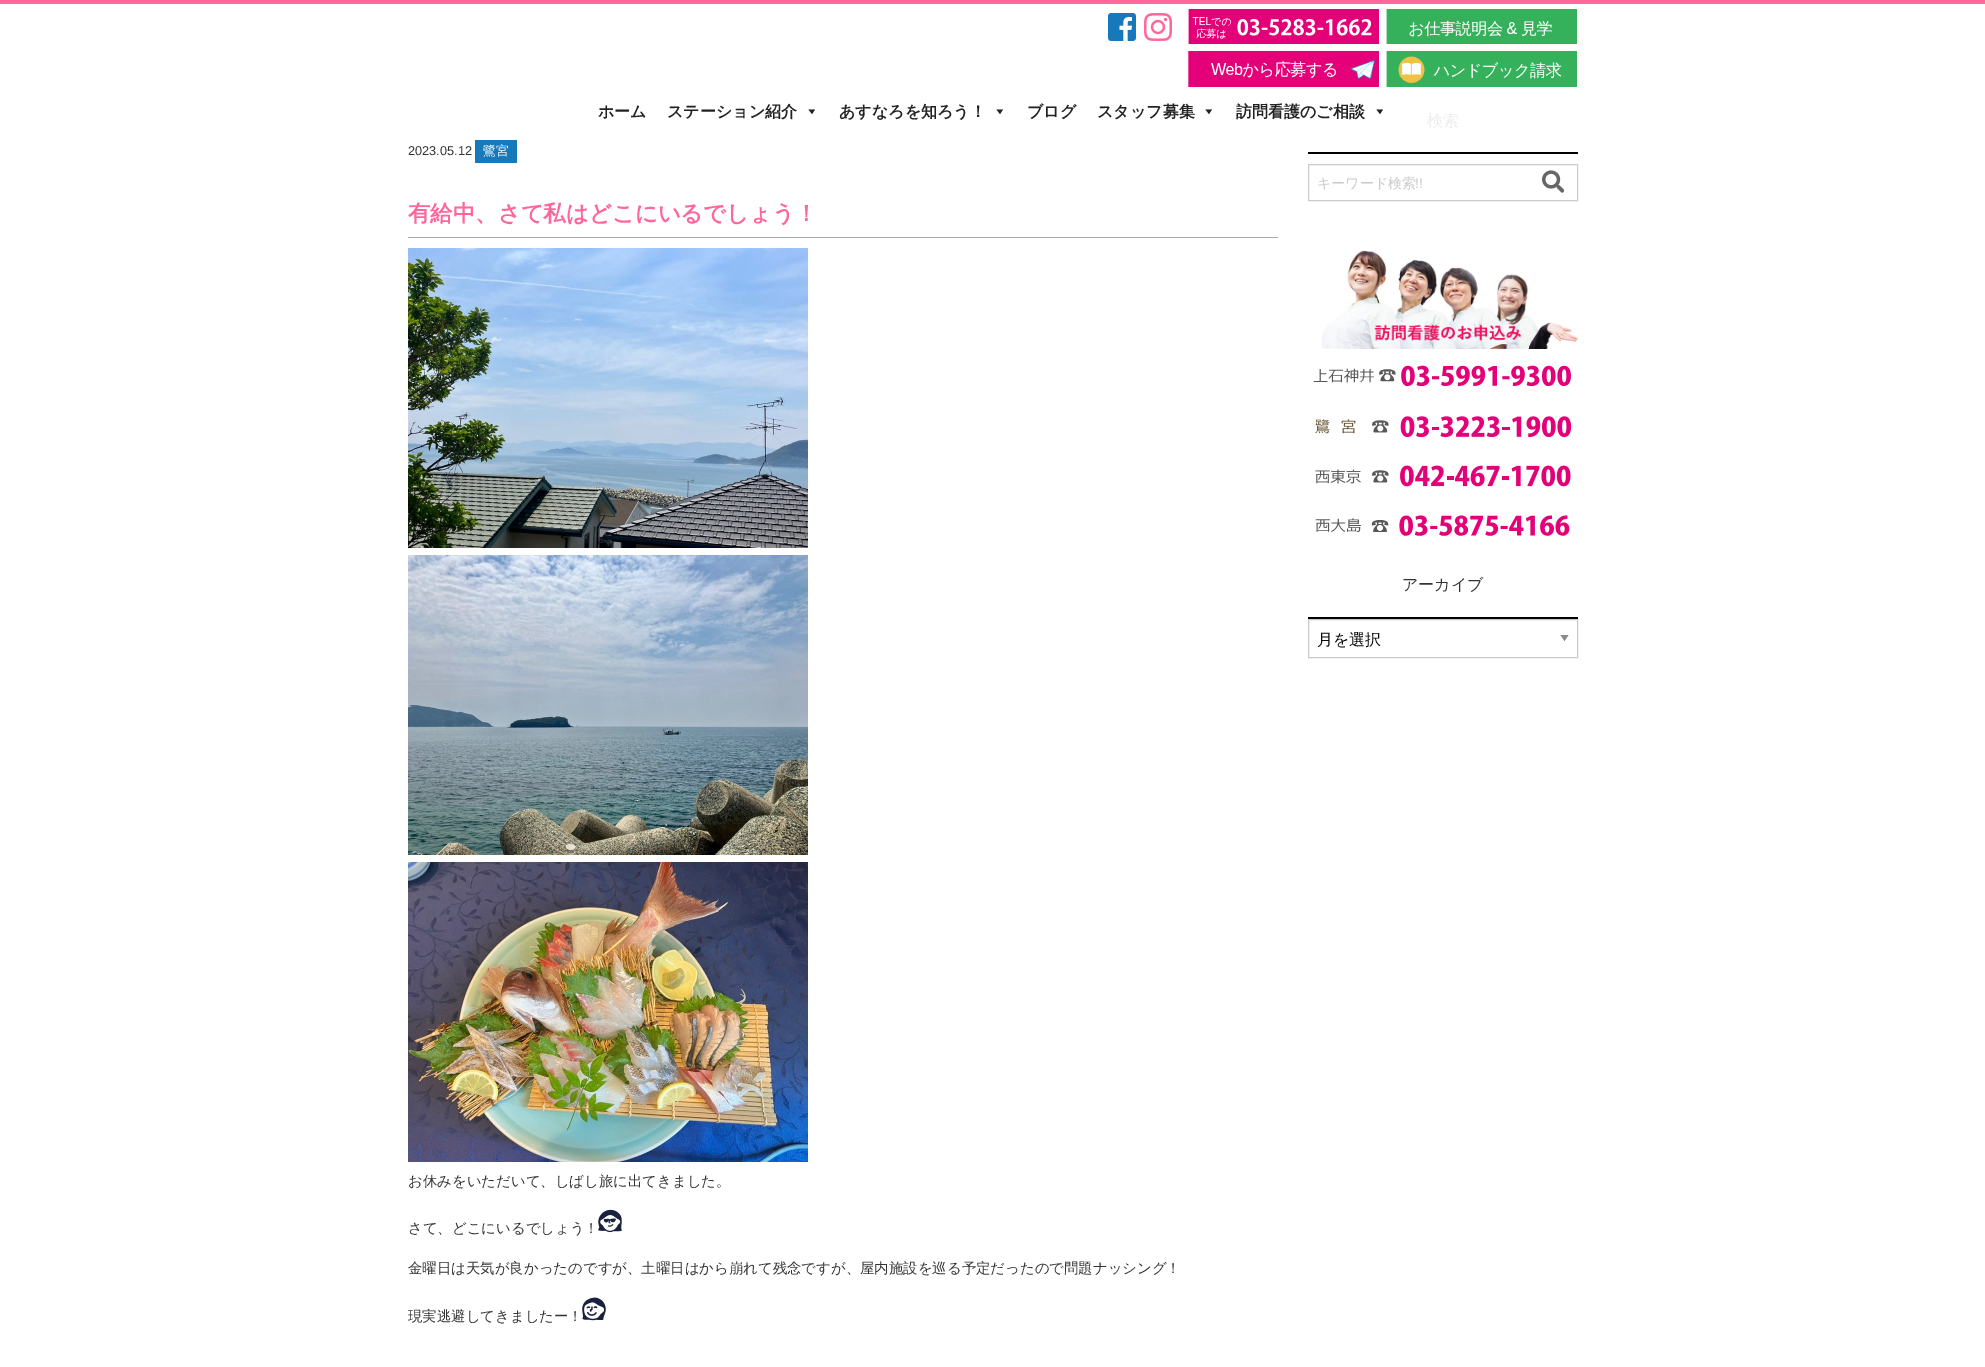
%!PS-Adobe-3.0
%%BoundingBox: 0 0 1985 1367
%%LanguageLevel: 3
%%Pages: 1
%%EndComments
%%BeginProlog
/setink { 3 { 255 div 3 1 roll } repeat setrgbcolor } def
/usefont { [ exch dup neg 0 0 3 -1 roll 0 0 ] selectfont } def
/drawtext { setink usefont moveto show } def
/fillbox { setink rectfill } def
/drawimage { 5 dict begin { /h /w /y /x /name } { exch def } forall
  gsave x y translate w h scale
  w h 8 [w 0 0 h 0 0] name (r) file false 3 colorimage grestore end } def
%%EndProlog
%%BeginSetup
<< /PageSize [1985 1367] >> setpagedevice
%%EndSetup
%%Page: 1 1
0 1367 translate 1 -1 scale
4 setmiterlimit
0 0 1985 1367 255 255 255 fillbox
0 0 1985 4 255 102 153 fillbox
(assets/img1.rgb) 1108 13 28 28 drawimage
(assets/img2.rgb) 1144 13 28 28 drawimage
(assets/img3.rgb) 1188 9 191 35 drawimage
(assets/img4.rgb) 1386 9 191 35 drawimage
(assets/img5.rgb) 1188 51 191 36 drawimage
(assets/img6.rgb) 1386 51 191 36 drawimage
(ホーム) 598 117 /WenQuanYiZenHei-Bold 16 34 34 34 drawtext
(ステーション紹介) 667 117 /WenQuanYiZenHei-Bold 16 34 34 34 drawtext
815 109.5 moveto 812 114 lineto 808.5 109.5 lineto closepath fill
(あすなろを知ろう！) 839 117 /WenQuanYiZenHei-Bold 16 34 34 34 drawtext
1003 109.5 moveto 1000 114 lineto 996.5 109.5 lineto closepath fill
(ブログ) 1027 117 /WenQuanYiZenHei-Bold 16 34 34 34 drawtext
(スタッフ募集) 1097 117 /WenQuanYiZenHei-Bold 16 34 34 34 drawtext
1212 109.5 moveto 1209 114 lineto 1205.5 109.5 lineto closepath fill
(訪問看護のご相談) 1236 117 /WenQuanYiZenHei-Bold 16 34 34 34 drawtext
1383 109.5 moveto 1380 114 lineto 1376.5 109.5 lineto closepath fill
(2023.05.12) 408 155 /LiberationSans-Regular 12.75 51 51 51 drawtext
475 140 42 23 23 121 186 fillbox
(鷺宮) 483 155 /WenQuanYiZenHei-Medium 12.75 254 254 254 drawtext
408 237 870 1 170 170 170 fillbox
(有給中、さて私はどこにいるでしょう！) 408 221 /WenQuanYiZenHei-Bold 22.4 255 102 153 drawtext
(assets/img7.rgb) 408 248 400 300 drawimage
(assets/img8.rgb) 408 555 400 300 drawimage
(assets/img9.rgb) 408 862 400 300 drawimage
(お休みをいただいて、しばし旅に出てきました。) 408 1186 /WenQuanYiZenHei-Medium 14.4 51 51 51 drawtext
(さて、どこにいるでしょう！) 408 1233 /WenQuanYiZenHei-Medium 14.4 51 51 51 drawtext
(assets/img10.rgb) 598 1209 24 24 drawimage
(金曜日は天気が良かったのですが、土曜日はから崩れて残念ですが、屋内施設を巡る予定だったので問題ナッシング！) 408 1273 /WenQuanYiZenHei-Medium 14.4 51 51 51 drawtext
(現実逃避してきましたー！) 408 1321 /WenQuanYiZenHei-Medium 14.4 51 51 51 drawtext
(assets/img11.rgb) 582 1297 24 24 drawimage
1308 152 270 2 0 0 0 fillbox
(検索) 1427 126 /WenQuanYiZenHei-Medium 16 237 237 237 drawtext
204 204 204 setink
1308.5 164.5 269 36 rectstroke
(キーワード検索) 1317 188 /WenQuanYiZenHei-Medium 14 202 202 202 drawtext
(!!) 1415 188 /LiberationSans-Regular 14 202 202 202 drawtext
(assets/img12.rgb) 1542 170 22 23 drawimage
(assets/img13.rgb) 1321 250 257 99 drawimage
(assets/img14.rgb) 1313 365 258 21 drawimage
(assets/img15.rgb) 1315 416 257 22 drawimage
(assets/img16.rgb) 1315 465 256 22 drawimage
(assets/img17.rgb) 1315 515 255 21 drawimage
1308 617 270 2 0 0 0 fillbox
(アーカイブ) 1402 590 /WenQuanYiZenHei-Medium 16 51 51 51 drawtext
138 138 138 setink
1560.5 635 moveto 1568.5 635 lineto 1564.5 641 lineto closepath fill
202 202 202 setink
1308.5 619.5 269 38 rectstroke
(月を選択) 1317 645 /WenQuanYiZenHei-Medium 16 10 10 10 drawtext
showpage
%%EOF
